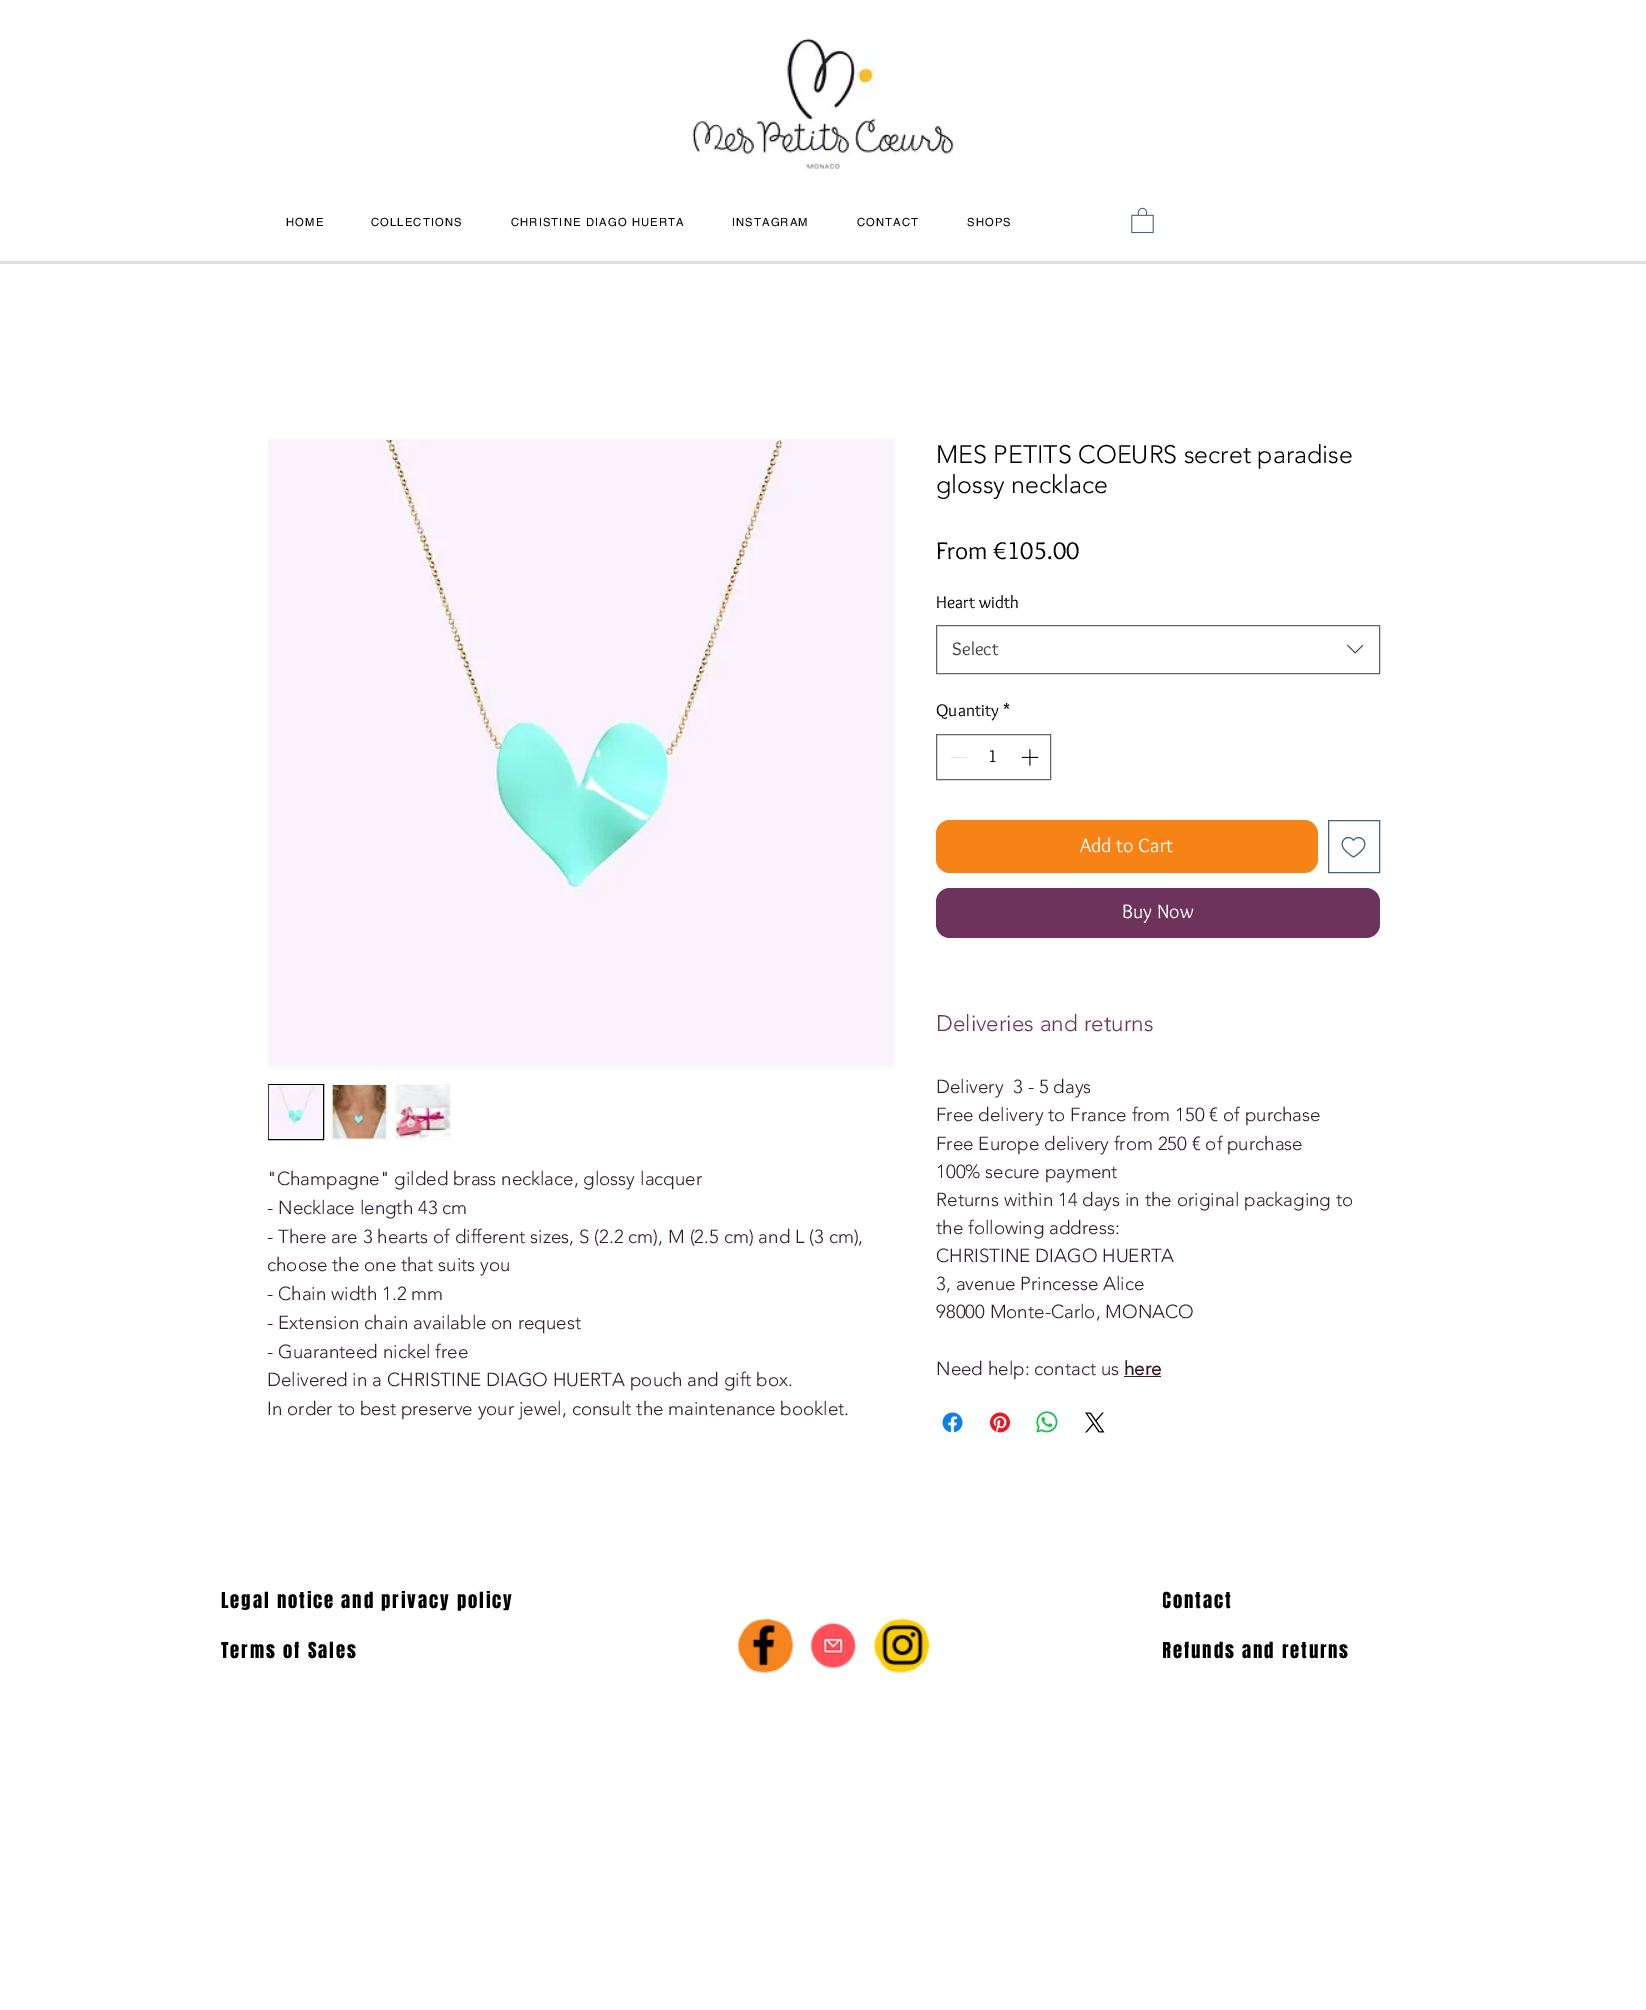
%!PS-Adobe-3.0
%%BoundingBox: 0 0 1646 2010
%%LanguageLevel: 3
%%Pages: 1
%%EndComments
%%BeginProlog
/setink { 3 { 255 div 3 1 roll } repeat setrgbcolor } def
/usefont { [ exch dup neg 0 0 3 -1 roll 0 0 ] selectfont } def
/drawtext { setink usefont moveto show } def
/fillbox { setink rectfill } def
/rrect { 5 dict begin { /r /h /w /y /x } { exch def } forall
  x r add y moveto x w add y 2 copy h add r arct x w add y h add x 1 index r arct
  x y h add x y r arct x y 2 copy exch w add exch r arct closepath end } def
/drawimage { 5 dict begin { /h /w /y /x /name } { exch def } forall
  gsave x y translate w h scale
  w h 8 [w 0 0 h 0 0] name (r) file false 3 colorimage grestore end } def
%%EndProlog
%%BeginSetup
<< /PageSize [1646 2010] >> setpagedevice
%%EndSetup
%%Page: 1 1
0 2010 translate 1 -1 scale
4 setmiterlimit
0 0 1646 2010 255 255 255 fillbox
(assets/img1.rgb) 690 35 265 135 drawimage
/helvetica-Regular 11.25 usefont
0 0 0 setink
286 226 moveto 1.1 0 (HOME) ashow
371 226 moveto 1.1 0 (COLLECTIONS) ashow
511 226 moveto 1.1 0 (CHRISTINE DIAGO HUERTA) ashow
732 226 moveto 1.1 0 (INSTAGRAM) ashow
857 226 moveto 1.1 0 (CONTACT) ashow
967 226 moveto 1.1 0 (SHOPS) ashow
(assets/img2.rgb) 1131 207 23 27 drawimage
0 261 1646 3 221 220 220 fillbox
248 248 248 setink
268.5 439.5 626 628 rectstroke
(assets/img3.rgb) 269 440 625 626 drawimage
0 0 0 setink
268.5 1084.5 55 55 rectstroke
(assets/img4.rgb) 268 1085 55 54 drawimage
248 248 248 setink
331.5 1084.5 56 55 rectstroke
(assets/img5.rgb) 332 1085 55 54 drawimage
395.5 1084.5 55 55 rectstroke
(assets/img6.rgb) 395 1085 55 54 drawimage
("Champagne" gilded brass necklace, glossy lacquer) 267 1185 /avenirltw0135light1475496-Light 18.75 54 26 46 drawtext
(- Necklace length 43 cm) 267 1214 /avenirltw0135light1475496-Light 18.75 54 26 46 drawtext
(- There are 3 hearts of different sizes, S \(2.2 cm\), M \(2.5 cm\) and L \(3 cm\),) 267 1243 /avenirltw0135light1475496-Light 18.75 54 26 46 drawtext
(choose the one that suits you) 267 1271 /avenirltw0135light1475496-Light 18.75 54 26 46 drawtext
(- Chain width 1.2 mm) 267 1300 /avenirltw0135light1475496-Light 18.75 54 26 46 drawtext
(- Extension chain available on request) 267 1329 /avenirltw0135light1475496-Light 18.75 54 26 46 drawtext
(- Guaranteed nickel free) 267 1358 /avenirltw0135light1475496-Light 18.75 54 26 46 drawtext
(Delivered in a CHRISTINE DIAGO HUERTA pouch and gift box.) 267 1386 /avenirltw0135light1475496-Light 18.75 54 26 46 drawtext
(In order to best preserve your jewel, consult the maintenance booklet.) 267 1415 /avenirltw0135light1475496-Light 18.75 54 26 46 drawtext
(MES PETITS COEURS secret paradise) 936 463 /avenirltw0135light1475496-Light 25 0 0 0 drawtext
(glossy necklace) 936 493 /avenirltw0135light1475496-Light 25 0 0 0 drawtext
(From €105.00) 936 559 /Overlock-Regular 25 0 0 0 drawtext
(Heart width) 936 608 /Overlock-Regular 17.5 0 0 0 drawtext
102 102 102 setink
936.5 625.5 443 48 rectstroke
(Select) 952 655 /Overlock-Regular 18.75 68 68 68 drawtext
(assets/img7.rgb) 1347 644 17 10 drawimage
(Quantity) 936 716 /Overlock-Regular 17.5 0 0 0 drawtext
(*) 1003 716 /Overlock-Regular 17.5 0 0 0 drawtext
102 102 102 setink
936.5 734.5 114 45 rectstroke
951 757 16 1 227 227 227 fillbox
(1) 988 762 /Overlock-Regular 17.5 0 0 0 drawtext
(assets/img8.rgb) 1021 749 18 17 drawimage
247 131 22 setink
936 820 382 53 14 rrect fill
(Add to Cart) 1080 852 /Overlock-Regular 20 255 255 255 drawtext
65 100 130 setink
1328.5 820.5 51 52 rectstroke
(assets/img9.rgb) 1341 836 25 22 drawimage
109 51 92 setink
936 888 444 50 14 rrect fill
(Buy Now) 1122 918 /Overlock-Regular 20 255 255 255 drawtext
(Deliveries and returns) 936 1031 /avenirltw0135light1475496-Light 22.5 109 51 92 drawtext
(Delivery  3 - 5 days) 936 1093 /avenirltw0135light1475496-Light 18.75 54 26 46 drawtext
(Free delivery to France from 150 € of purchase) 936 1121 /avenirltw0135light1475496-Light 18.75 54 26 46 drawtext
(Free Europe delivery from 250 € of purchase) 936 1150 /avenirltw0135light1475496-Light 18.75 54 26 46 drawtext
(100% secure payment) 936 1178 /avenirltw0135light1475496-Light 18.75 54 26 46 drawtext
(Returns within 14 days in the original packaging to) 936 1206 /avenirltw0135light1475496-Light 18.75 54 26 46 drawtext
(the following address:) 936 1234 /avenirltw0135light1475496-Light 18.75 54 26 46 drawtext
(CHRISTINE DIAGO HUERTA) 936 1262 /avenirltw0135light1475496-Light 18.75 54 26 46 drawtext
(3, avenue Princesse Alice) 936 1290 /avenirltw0135light1475496-Light 18.75 54 26 46 drawtext
(98000 Monte-Carlo, MONACO) 936 1318 /avenirltw0135light1475496-Light 18.75 54 26 46 drawtext
(Need help: contact us) 936 1375 /avenirltw0135light1475496-Light 18.75 54 26 46 drawtext
(here) 1124 1375 /avenirltw0135light1475496-Bold 18.75 54 26 46 drawtext
1124 1376 37 1 54 26 46 fillbox
(assets/img10.rgb) 942 1412 21 21 drawimage
(assets/img11.rgb) 990 1412 20 21 drawimage
(assets/img12.rgb) 1036 1411 22 22 drawimage
(assets/img13.rgb) 1085 1412 20 21 drawimage
/Anton-Regular 18.75 usefont
0 0 0 setink
221 1608 moveto 1.9 0 (Legal notice and privacy policy) ashow
gsave
1163 1586 70 28 rectclip
1162 1608 moveto 1.9 0 (Contact) ashow
grestore
(assets/img14.rgb) 737 1618 57 55 drawimage
(assets/img15.rgb) 810 1622 47 47 drawimage
(assets/img16.rgb) 873 1618 58 55 drawimage
gsave
221 1636 135 28 rectclip
221 1658 moveto 1.9 0 (Terms of Sales) ashow
grestore
(assets/img17.rgb) 752 1624 24 42 drawimage
(assets/img18.rgb) 882 1624 41 42 drawimage
gsave
1163 1636 187 28 rectclip
1162 1658 moveto 1.9 0 (Refunds and returns) ashow
grestore
showpage
%%EOF
